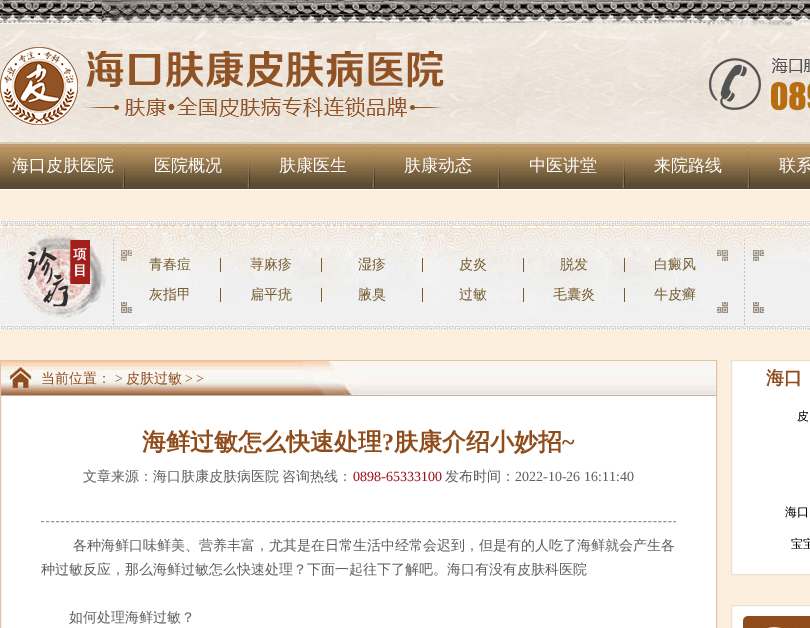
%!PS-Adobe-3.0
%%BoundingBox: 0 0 810 628
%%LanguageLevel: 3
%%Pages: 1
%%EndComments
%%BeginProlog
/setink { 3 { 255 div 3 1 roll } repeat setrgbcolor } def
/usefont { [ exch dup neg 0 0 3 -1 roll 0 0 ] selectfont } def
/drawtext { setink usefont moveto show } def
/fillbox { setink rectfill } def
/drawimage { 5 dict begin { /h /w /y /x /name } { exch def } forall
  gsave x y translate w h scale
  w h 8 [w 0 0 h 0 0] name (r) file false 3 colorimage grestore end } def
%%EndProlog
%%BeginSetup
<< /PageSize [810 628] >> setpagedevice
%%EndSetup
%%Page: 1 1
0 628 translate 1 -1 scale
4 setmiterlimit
0 0 810 628 252 239 222 fillbox
(assets/img1.rgb) 0 0 810 142 drawimage
(assets/img2.rgb) 0 142 810 48 drawimage
(assets/img3.rgb) 122 144 3 44 drawimage
(海口皮肤医院) 12 171 /WenQuanYiZenHei-Medium 17 255 255 255 drawtext
(assets/img3.rgb) 247 144 3 44 drawimage
(医院概况) 154 171 /WenQuanYiZenHei-Medium 17 255 255 255 drawtext
(assets/img3.rgb) 372 144 3 44 drawimage
(肤康医生) 279 171 /WenQuanYiZenHei-Medium 17 255 255 255 drawtext
(assets/img3.rgb) 497 144 3 44 drawimage
(肤康动态) 404 171 /WenQuanYiZenHei-Medium 17 255 255 255 drawtext
(assets/img3.rgb) 622 144 3 44 drawimage
(中医讲堂) 529 171 /WenQuanYiZenHei-Medium 17 255 255 255 drawtext
(assets/img3.rgb) 747 144 3 44 drawimage
(来院路线) 654 171 /WenQuanYiZenHei-Medium 17 255 255 255 drawtext
(联系) 779 171 /WenQuanYiZenHei-Medium 17 255 255 255 drawtext
(assets/img4.rgb) 0 220 810 110 drawimage
220 258 1 14 117 93 47 fillbox
(青春痘) 149 269 /WenQuanYiZenHei-Medium 14 117 93 47 drawtext
321 258 1 14 117 93 47 fillbox
(荨麻疹) 250 269 /WenQuanYiZenHei-Medium 14 117 93 47 drawtext
422 258 1 14 117 93 47 fillbox
(湿疹) 358 269 /WenQuanYiZenHei-Medium 14 117 93 47 drawtext
523 258 1 14 117 93 47 fillbox
(皮炎) 459 269 /WenQuanYiZenHei-Medium 14 117 93 47 drawtext
624 258 1 14 117 93 47 fillbox
(脱发) 560 269 /WenQuanYiZenHei-Medium 14 117 93 47 drawtext
(白癜风) 654 269 /WenQuanYiZenHei-Medium 14 117 93 47 drawtext
220 288 1 14 117 93 47 fillbox
(灰指甲) 149 299 /WenQuanYiZenHei-Medium 14 117 93 47 drawtext
321 288 1 14 117 93 47 fillbox
(扁平疣) 250 299 /WenQuanYiZenHei-Medium 14 117 93 47 drawtext
422 288 1 14 117 93 47 fillbox
(腋臭) 358 299 /WenQuanYiZenHei-Medium 14 117 93 47 drawtext
523 288 1 14 117 93 47 fillbox
(过敏) 459 299 /WenQuanYiZenHei-Medium 14 117 93 47 drawtext
624 288 1 14 117 93 47 fillbox
(毛囊炎) 553 299 /WenQuanYiZenHei-Medium 14 117 93 47 drawtext
(牛皮癣) 654 299 /WenQuanYiZenHei-Medium 14 117 93 47 drawtext
1 396 715 232 255 255 255 fillbox
223 196 167 setink
0.5 360.5 716 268 rectstroke
(assets/img5.rgb) 1 361 715 35 drawimage
(当前位置：) 41 383 /WenQuanYiZenHei-Medium 14 144 76 27 drawtext
(>) 115 383 /LiberationSerif-Regular 14 144 76 27 drawtext
(皮肤过敏) 126 383 /WenQuanYiZenHei-Medium 14 144 76 27 drawtext
(> >) 185 383 /LiberationSerif-Regular 14 144 76 27 drawtext
149 149 149 setink
[3 2.02] 0 setdash
41 521.5 moveto 676 521.5 lineto stroke
(海鲜过敏怎么快速处理) 142 450 /WenQuanYiZenHei-Bold 24 144 76 27 drawtext
(?) 382 450 /LiberationSerif-Bold 24 144 76 27 drawtext
(肤康介绍小妙招) 394 450 /WenQuanYiZenHei-Bold 24 144 76 27 drawtext
(~) 562 450 /LiberationSerif-Bold 24 144 76 27 drawtext
/WenQuanYiZenHei-Medium 14 usefont
95 95 93 setink
83 481 moveto -1 0 32 (文章来源：海口肤康皮肤病医院 咨询热线：) widthshow
(0898-65333100) 353 481 /LiberationSerif-Regular 14 158 14 22 drawtext
(发布时间：) 445 481 /WenQuanYiZenHei-Medium 14 95 95 93 drawtext
(2022-10-26 16:11:40) 515 481 /LiberationSerif-Regular 14 95 95 93 drawtext
(各种海鲜口味鲜美、营养丰富，尤其是在日常生活中经常会迟到，但是有的人吃了海鲜就会产生各) 73 550 /WenQuanYiZenHei-Medium 14 95 95 93 drawtext
(种过敏反应，那么海鲜过敏怎么快速处理？下面一起往下了解吧。海口有没有皮肤科医院) 41 574 /WenQuanYiZenHei-Medium 14 95 95 93 drawtext
(如何处理海鲜过敏？) 69 622 /WenQuanYiZenHei-Medium 14 95 95 93 drawtext
255 255 255 setink
731.5 360.5 moveto 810.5 360.5 lineto 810.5 574.5 lineto 731.5 574.5 lineto closepath gsave fill grestore
236 225 205 setink
[] 0 setdash
stroke
(海口) 766 384 /WenQuanYiZenHei-Bold 18 144 76 27 drawtext
(皮) 797 420 /WenQuanYiZenHei-Medium 12 0 0 0 drawtext
(海口) 785 516 /WenQuanYiZenHei-Medium 12 0 0 0 drawtext
(宝宝) 791 548 /WenQuanYiZenHei-Medium 12 0 0 0 drawtext
255 255 255 setink
731.5 605.5 moveto 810.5 605.5 lineto 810.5 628.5 lineto 731.5 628.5 lineto closepath gsave fill grestore
236 225 205 setink
stroke
(assets/img6.rgb) 743 616 67 12 drawimage
showpage
%%EOF
